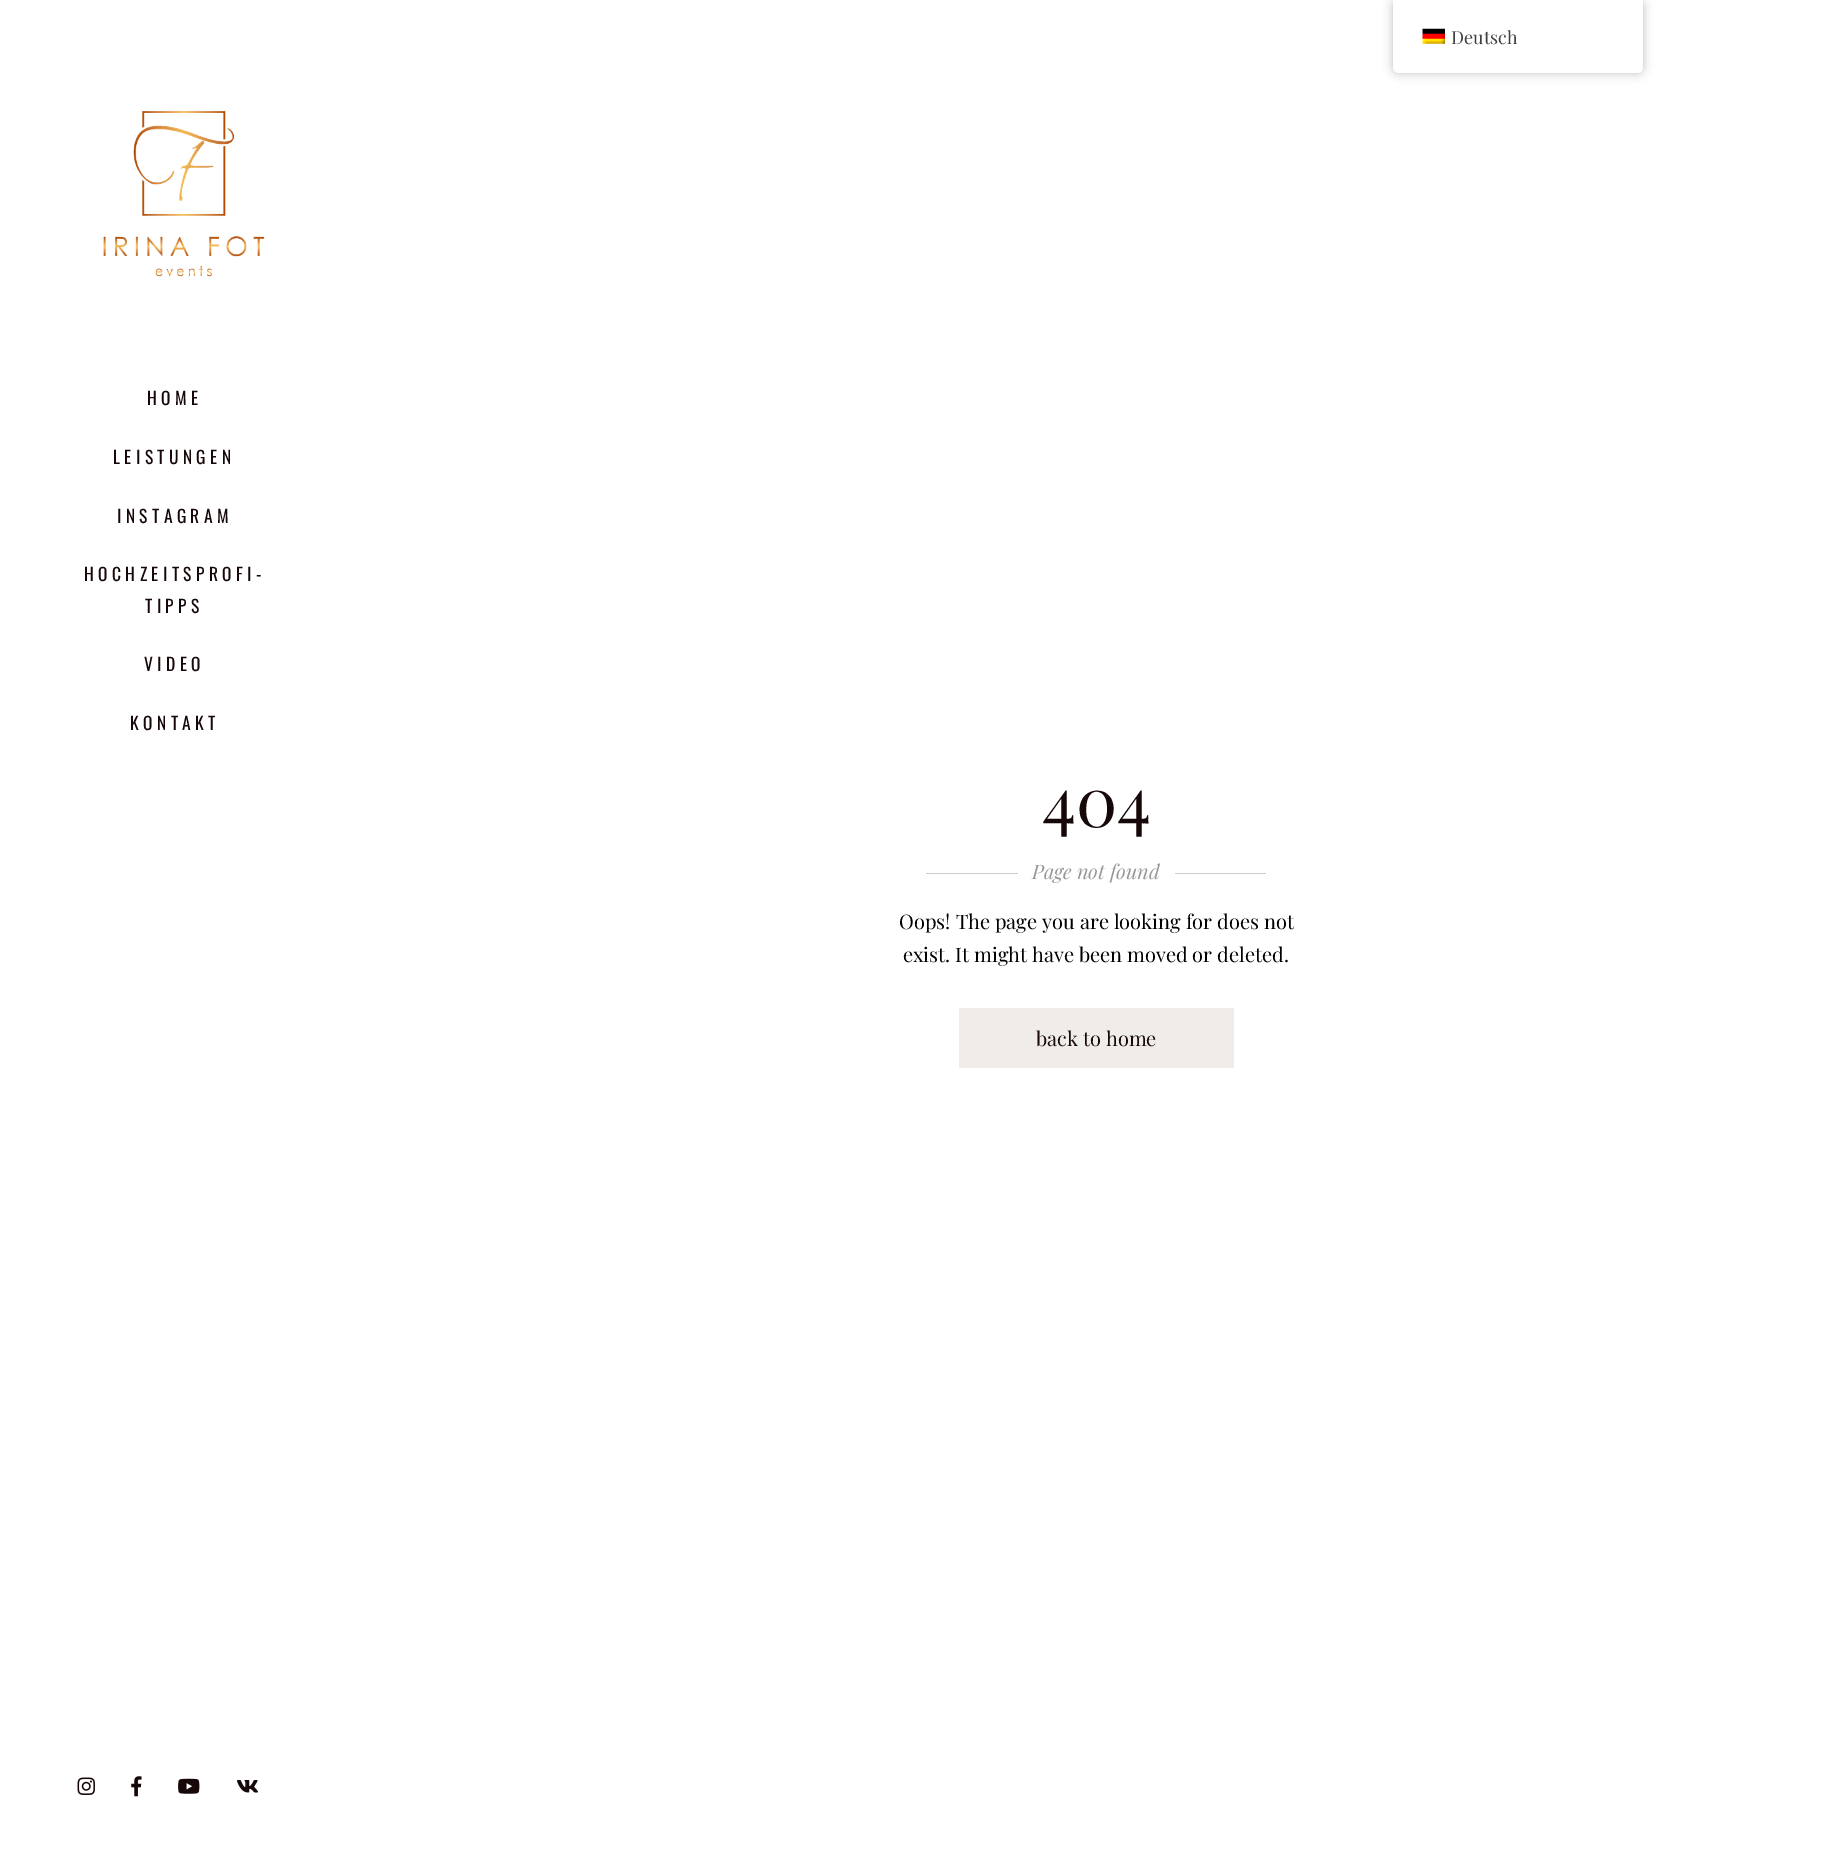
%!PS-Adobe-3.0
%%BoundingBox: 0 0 1824 1850
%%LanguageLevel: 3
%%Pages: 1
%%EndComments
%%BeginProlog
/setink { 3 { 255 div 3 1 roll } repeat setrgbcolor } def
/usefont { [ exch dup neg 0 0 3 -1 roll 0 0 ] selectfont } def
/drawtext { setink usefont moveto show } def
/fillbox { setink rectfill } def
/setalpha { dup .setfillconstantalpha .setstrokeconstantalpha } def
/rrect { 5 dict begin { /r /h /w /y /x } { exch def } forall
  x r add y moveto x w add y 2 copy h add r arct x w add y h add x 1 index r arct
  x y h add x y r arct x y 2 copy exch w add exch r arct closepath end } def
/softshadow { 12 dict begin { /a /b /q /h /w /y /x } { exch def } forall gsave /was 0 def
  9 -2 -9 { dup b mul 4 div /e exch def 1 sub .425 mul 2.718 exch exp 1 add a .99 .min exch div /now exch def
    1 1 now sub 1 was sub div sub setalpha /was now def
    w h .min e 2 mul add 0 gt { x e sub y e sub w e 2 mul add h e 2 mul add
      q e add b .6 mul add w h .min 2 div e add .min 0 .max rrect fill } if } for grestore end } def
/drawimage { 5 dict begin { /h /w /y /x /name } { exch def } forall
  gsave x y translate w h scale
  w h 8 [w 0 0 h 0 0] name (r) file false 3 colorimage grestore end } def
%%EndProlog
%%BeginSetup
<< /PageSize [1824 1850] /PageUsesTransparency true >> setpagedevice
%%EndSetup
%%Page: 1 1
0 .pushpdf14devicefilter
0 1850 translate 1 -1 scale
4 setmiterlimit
0 0 1824 1850 255 255 255 fillbox
0 0 0 setink
1393 0 250 73 6 5 0.25 softshadow
255 255 255 setink
1393 0 moveto 1643 0 lineto 1643 67 lineto 1643 70.5 1640.5 73 1637 73 curveto 1399 73 lineto 1395.5 73 1393 70.5 1393 67 curveto closepath fill
(assets/img1.rgb) 1422 28 23 16 drawimage
(Deutsch) 1451 44 /PlayfairDisplay-Regular 18 64 64 64 drawtext
(assets/img2.rgb) 103 110 162 167 drawimage
/Oswald-Regular 17.5 usefont
22 8 8 setink
147 405 moveto 4.4 0 (HOME) ashow
113 464 moveto 4.4 0 (LEISTUNGEN) ashow
117 523 moveto 4.4 0 (INSTAGRAM) ashow
84 581 moveto 4.4 0 (HOCHZEITSPROFI-) ashow
145 613 moveto 4.4 0 (TIPPS) ashow
144 671 moveto 4.4 0 (VIDEO) ashow
130 730 moveto 4.4 0 (KONTAKT) ashow
(assets/img3.rgb) 77 1777 18 18 drawimage
(assets/img4.rgb) 131 1776 11 21 drawimage
(assets/img5.rgb) 178 1778 22 16 drawimage
(assets/img6.rgb) 237 1780 21 13 drawimage
(404) 1042 827 /PlayfairDisplay-Regular 69 22 8 8 drawtext
926 873 92 1 204 204 204 fillbox
(Page not found) 1032 879 /PlayfairDisplay-Italic 20 151 151 151 drawtext
1175 873 91 1 204 204 204 fillbox
(Oops! The page you are looking for does not) 899 929 /PlayfairDisplay-Regular 20 0 0 0 drawtext
(exist. It might have been moved or deleted.) 903 962 /PlayfairDisplay-Regular 20 0 0 0 drawtext
959 1008 275 60 240 237 232 fillbox
(back to home) 1036 1046 /PlayfairDisplay-Regular 20 22 8 8 drawtext
.poppdf14devicefilter showpage
%%EOF
